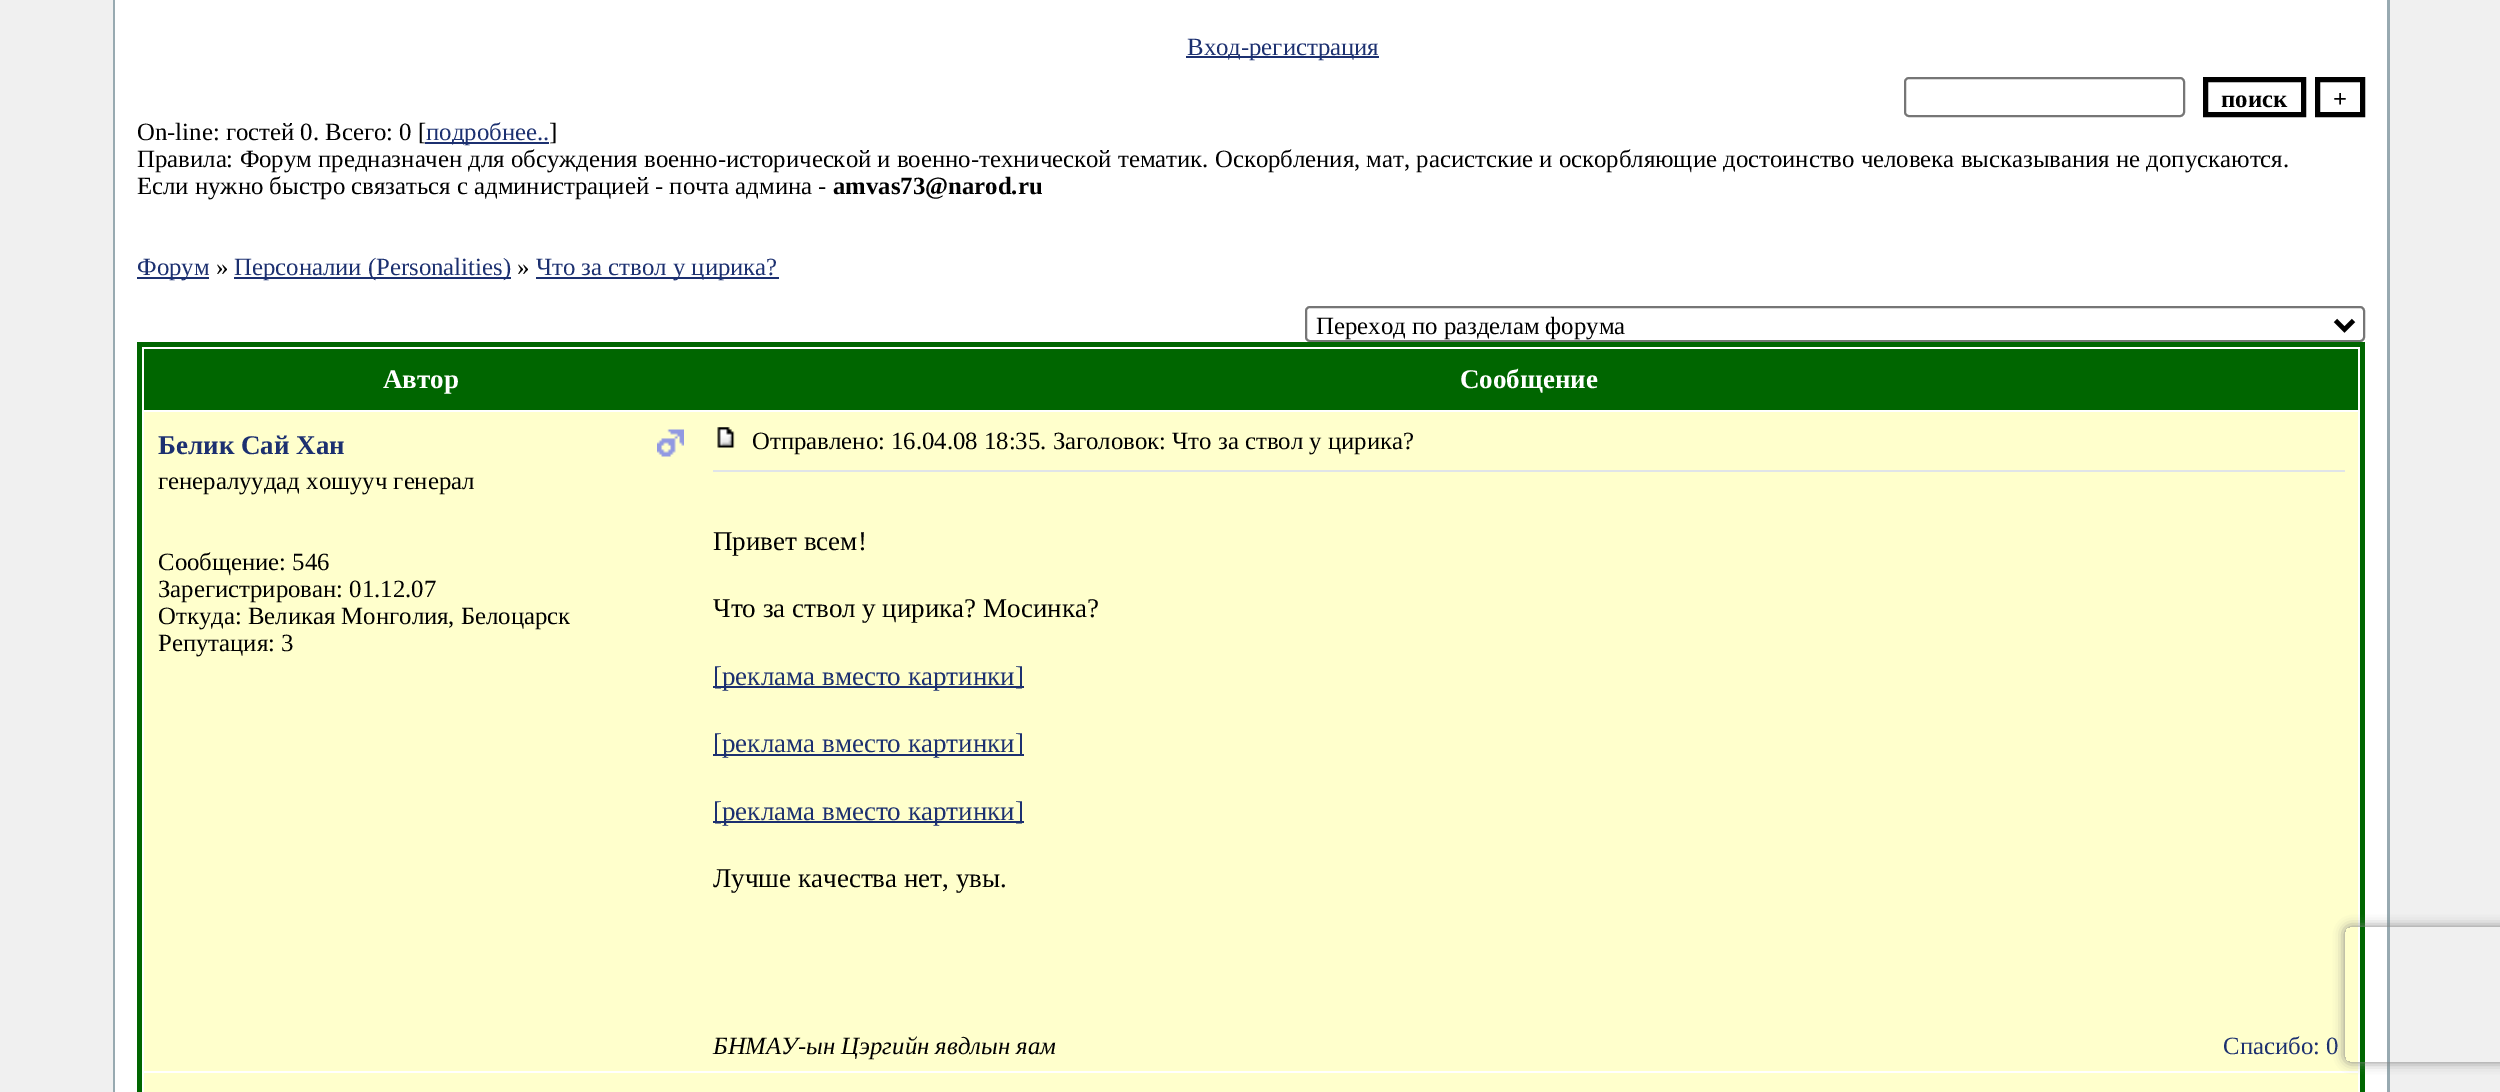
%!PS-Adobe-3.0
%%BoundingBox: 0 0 2500 1092
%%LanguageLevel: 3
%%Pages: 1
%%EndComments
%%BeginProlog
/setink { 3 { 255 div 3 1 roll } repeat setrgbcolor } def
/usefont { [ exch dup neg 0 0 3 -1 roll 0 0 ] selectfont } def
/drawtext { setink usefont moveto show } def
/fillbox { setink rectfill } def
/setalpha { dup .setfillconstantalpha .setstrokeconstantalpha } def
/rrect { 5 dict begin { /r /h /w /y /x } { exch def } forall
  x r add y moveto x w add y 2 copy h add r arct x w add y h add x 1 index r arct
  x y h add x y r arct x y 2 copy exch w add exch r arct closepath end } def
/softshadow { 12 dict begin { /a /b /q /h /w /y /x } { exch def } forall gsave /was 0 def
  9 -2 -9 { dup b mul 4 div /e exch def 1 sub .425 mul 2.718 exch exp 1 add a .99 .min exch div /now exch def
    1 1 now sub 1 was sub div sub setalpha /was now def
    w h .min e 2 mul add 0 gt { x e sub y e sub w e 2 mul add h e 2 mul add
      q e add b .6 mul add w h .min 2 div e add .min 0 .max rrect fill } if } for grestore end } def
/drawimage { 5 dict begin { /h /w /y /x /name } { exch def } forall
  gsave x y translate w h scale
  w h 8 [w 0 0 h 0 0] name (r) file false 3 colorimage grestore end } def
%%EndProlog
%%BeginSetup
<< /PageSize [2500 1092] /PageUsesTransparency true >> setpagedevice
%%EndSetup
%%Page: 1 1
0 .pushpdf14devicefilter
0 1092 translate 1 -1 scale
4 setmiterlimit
0 0 2500 1092 240 240 240 fillbox
113 0 2277 1092 152 170 177 fillbox
115 0 2272 1092 255 255 255 fillbox
1186 56 193 2 28 48 112 fillbox
(Вход-регистрация) 1187 55 /LiberationSerif-Regular 24.75 28 48 112 drawtext
118 118 118 setink
2 setlinewidth
1905 78 279 38 4 rrect stroke
0 0 0 setink
5 setlinewidth
2205.5 79.5 98 35 rectstroke
(поиск) 2221 107 /LiberationSerif-Bold 24.75 0 0 0 drawtext
2317.5 79.5 45 35 rectstroke
(+) 2333 107 /LiberationSerif-Bold 24.75 0 0 0 drawtext
(On-line: гостей 0. Всего: 0 [) 137 140 /LiberationSerif-Regular 24.75 0 0 0 drawtext
425 142 124 2 28 48 112 fillbox
(подробнее..) 426 140 /LiberationSerif-Regular 24.75 28 48 112 drawtext
(]) 549 140 /LiberationSerif-Regular 24.75 0 0 0 drawtext
(Правила: Форум предназначен для обсуждения военно-исторической и военно-технической тематик. Оскорбления, мат, расистские и оскорбляющие достоинство человека высказывания не допускаются.) 137 167 /LiberationSerif-Regular 24.75 0 0 0 drawtext
(Если нужно быстро связаться с администрацией - почта админа -) 137 194 /LiberationSerif-Regular 24.75 0 0 0 drawtext
(amvas73@narod.ru) 833 194 /LiberationSerif-Bold 24.75 0 0 0 drawtext
137 277 72 2 28 48 112 fillbox
(Форум) 137 275 /LiberationSerif-Regular 24.75 28 48 112 drawtext
(») 216 275 /LiberationSerif-Regular 24.75 0 0 0 drawtext
234 277 277 2 28 48 112 fillbox
(Персоналии \(Personalities\)) 234 275 /LiberationSerif-Regular 24.75 28 48 112 drawtext
(») 517 275 /LiberationSerif-Regular 24.75 0 0 0 drawtext
536 277 243 2 28 48 112 fillbox
(Что за ствол у цирика?) 536 275 /LiberationSerif-Regular 24.75 28 48 112 drawtext
118 118 118 setink
2 setlinewidth
1306 307 1058 34 4 rrect stroke
0 0 0 setink
4.5 setlinewidth
2335.5 320.5 moveto 2344.5 329.5 lineto 2353.5 320.5 lineto stroke
(Переход по разделам форума) 1316 334 /LiberationSerif-Regular 24.75 0 0 0 drawtext
137 342 2228 750 0 102 0 fillbox
142 347 2218 745 255 255 255 fillbox
144 349 2214 61 0 102 0 fillbox
(Автор) 383 388 /LiberationSerif-Bold 27 255 255 255 drawtext
(Сообщение) 1460 388 /LiberationSerif-Bold 27 255 255 255 drawtext
144 412 2214 659 255 255 204 fillbox
(Белик Сай Хан) 158 454 /LiberationSerif-Bold 27 28 48 112 drawtext
(assets/img1.rgb) 657 429 27 28 drawimage
(генералуудад хошууч генерал) 158 489 /LiberationSerif-Regular 24.75 0 0 0 drawtext
(Сообщение: 546) 158 570 /LiberationSerif-Regular 24.75 0 0 0 drawtext
(Зарегистрирован: 01.12.07) 158 597 /LiberationSerif-Regular 24.75 0 0 0 drawtext
(Откуда: Великая Монголия, Белоцарск) 158 624 /LiberationSerif-Regular 24.75 0 0 0 drawtext
(Репутация: 3) 158 651 /LiberationSerif-Regular 24.75 0 0 0 drawtext
(assets/img2.rgb) 717 427 18 21 drawimage
(Отправлено: 16.04.08 18:35. Заголовок: Что за ствол у цирика?) 752 449 /LiberationSerif-Regular 24.75 0 0 0 drawtext
713 470 1632 2 224 228 232 fillbox
(Привет всем!) 713 550 /LiberationSerif-Regular 27 0 0 0 drawtext
(Что за ствол у цирика? Мосинка?) 713 617 /LiberationSerif-Regular 27 0 0 0 drawtext
713 686 311 2 28 48 112 fillbox
([реклама вместо картинки]) 713 685 /LiberationSerif-Regular 27 28 48 112 drawtext
713 754 311 2 28 48 112 fillbox
([реклама вместо картинки]) 713 752 /LiberationSerif-Regular 27 28 48 112 drawtext
713 821 311 2 28 48 112 fillbox
([реклама вместо картинки]) 713 820 /LiberationSerif-Regular 27 28 48 112 drawtext
(Лучше качества нет, увы.) 713 887 /LiberationSerif-Regular 27 0 0 0 drawtext
(БНМАУ-ын Цэргийн явдлын яам) 713 1054 /LiberationSerif-Italic 24.75 0 0 0 drawtext
(Спасибо: 0) 2223 1054 /LiberationSerif-Regular 24.75 28 48 112 drawtext
144 1073 2214 19 255 255 204 fillbox
gsave
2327 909 moveto 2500 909 lineto 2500 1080 lineto 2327 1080 lineto closepath 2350 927 moveto 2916 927 lineto 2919 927 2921 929 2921 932 curveto 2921 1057 lineto 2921 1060 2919 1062 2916 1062 curveto 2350 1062 lineto 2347 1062 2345 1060 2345 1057 curveto 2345 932 lineto 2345 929 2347 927 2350 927 curveto closepath eoclip newpath
128 128 128 setink
2345 927 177 135 5 5.5 1 softshadow
grestore
.poppdf14devicefilter showpage
%%EOF
